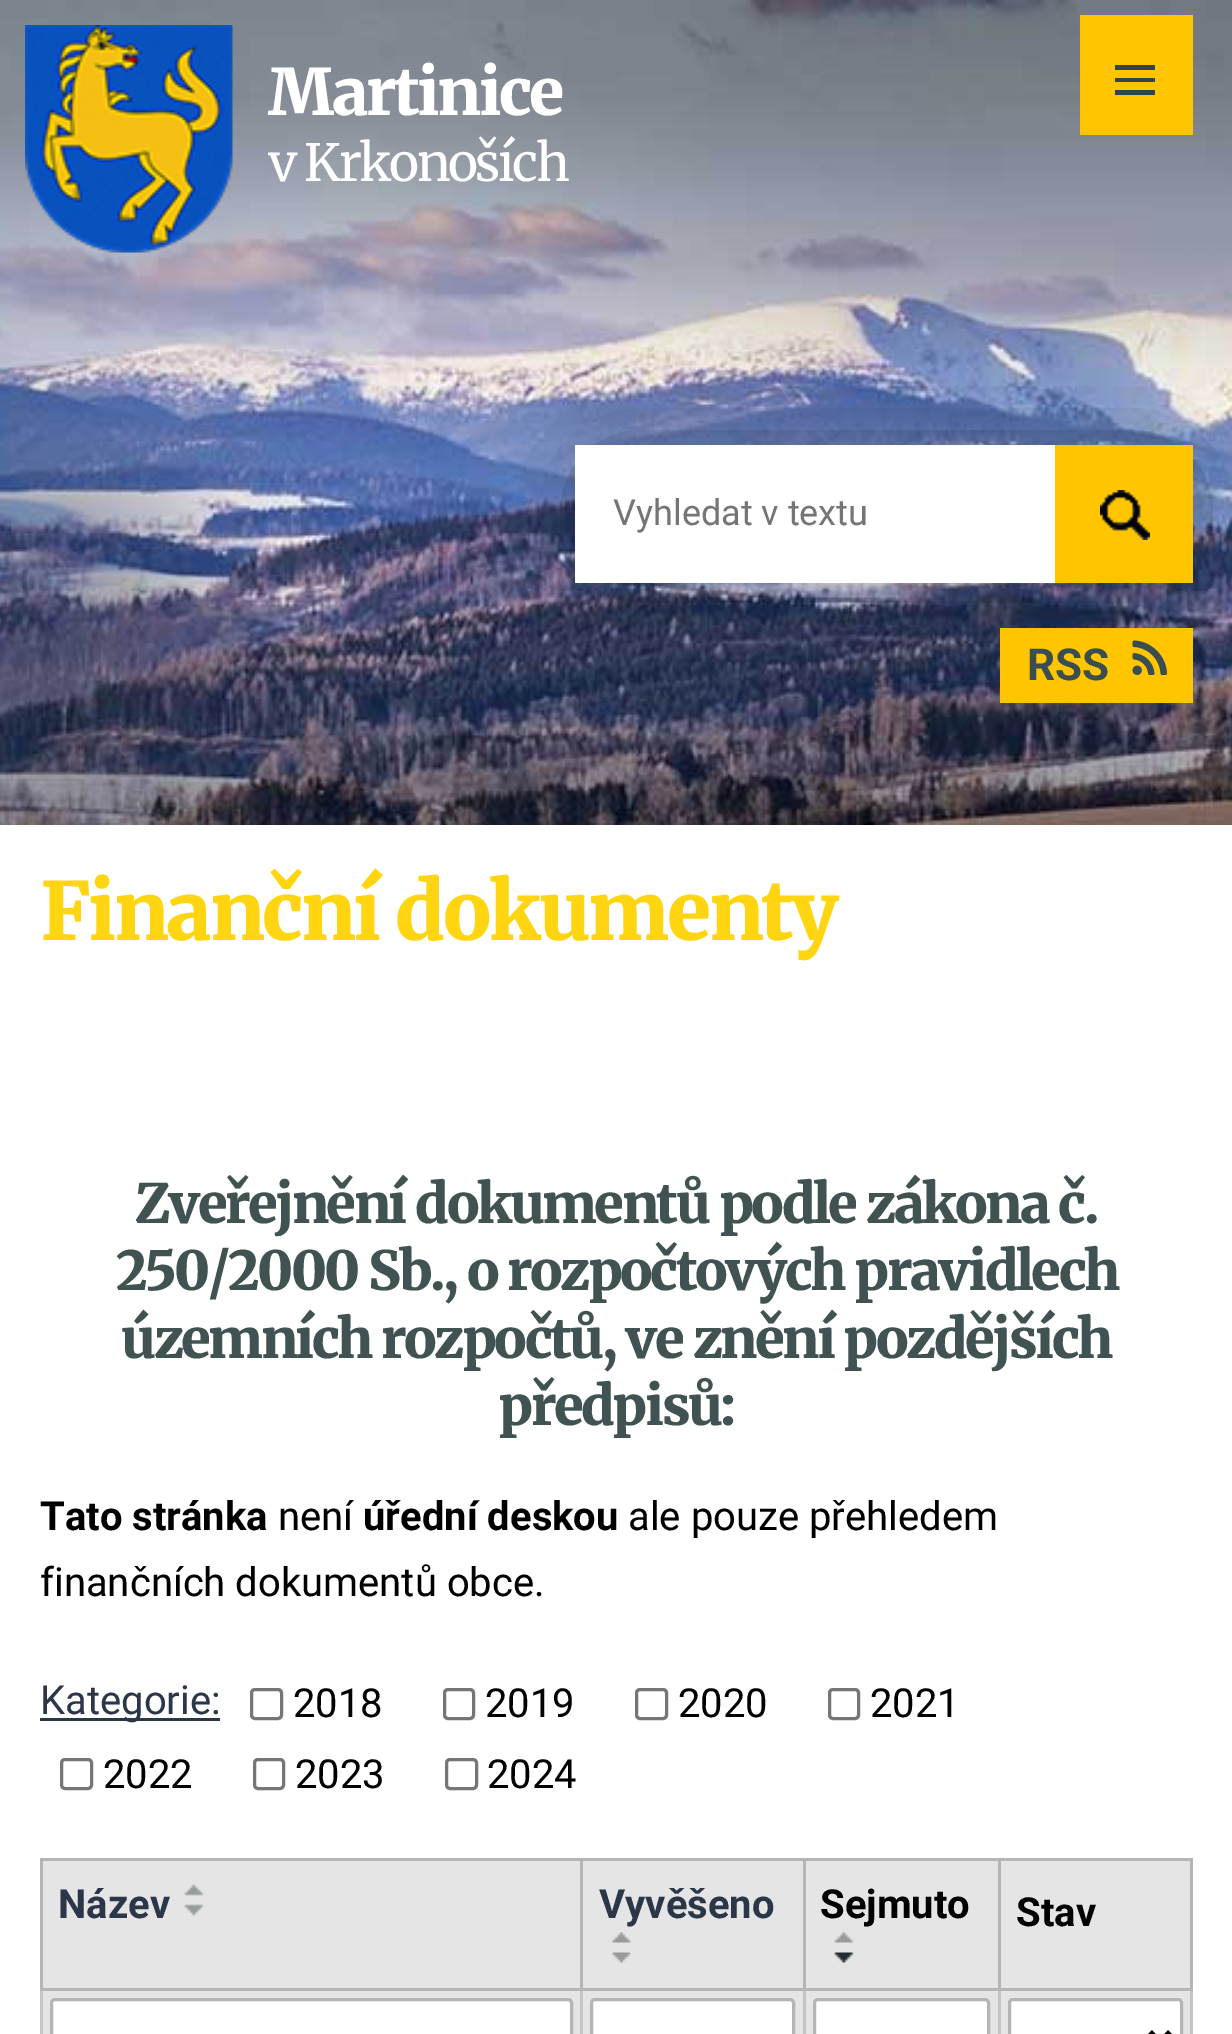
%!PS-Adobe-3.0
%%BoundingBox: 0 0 1232 2034
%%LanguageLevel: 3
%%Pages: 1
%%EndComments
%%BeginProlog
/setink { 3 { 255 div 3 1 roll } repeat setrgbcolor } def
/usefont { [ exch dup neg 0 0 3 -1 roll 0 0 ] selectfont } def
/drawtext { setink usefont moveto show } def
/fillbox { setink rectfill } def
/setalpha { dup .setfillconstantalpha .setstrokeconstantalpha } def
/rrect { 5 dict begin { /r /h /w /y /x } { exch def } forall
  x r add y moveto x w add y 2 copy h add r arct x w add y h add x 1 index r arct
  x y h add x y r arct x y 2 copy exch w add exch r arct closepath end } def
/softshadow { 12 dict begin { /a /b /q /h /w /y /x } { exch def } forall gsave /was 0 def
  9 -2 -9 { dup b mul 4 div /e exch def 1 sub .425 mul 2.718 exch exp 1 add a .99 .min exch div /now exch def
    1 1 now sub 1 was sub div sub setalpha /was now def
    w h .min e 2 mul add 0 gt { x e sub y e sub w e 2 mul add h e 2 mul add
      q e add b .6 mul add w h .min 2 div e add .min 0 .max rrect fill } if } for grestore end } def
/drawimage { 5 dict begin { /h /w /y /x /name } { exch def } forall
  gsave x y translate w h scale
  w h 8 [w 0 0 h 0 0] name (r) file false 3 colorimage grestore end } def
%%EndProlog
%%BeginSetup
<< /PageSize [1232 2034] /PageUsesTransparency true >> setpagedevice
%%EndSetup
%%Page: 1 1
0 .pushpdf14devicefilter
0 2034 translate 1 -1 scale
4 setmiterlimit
0 0 1232 2034 255 255 255 fillbox
(assets/img1.rgb) 0 0 1232 825 drawimage
(assets/img2.rgb) 25 25 208 228 drawimage
/Merriweather-Black 64 usefont
268 115 moveto -2.5 0 (Martinice) ashow
/Merriweather-Regular 51.25 usefont
268 181 moveto -2.5 0 (v Krkonoších) ashow
0 0 0 setink
615 485 543 63 0 44 1 softshadow
575 445 480 138 255 255 255 fillbox
(Vyhledat v textu) 613 525 /Roboto-Regular 36 117 117 117 drawtext
1055 445 138 138 255 198 0 fillbox
(assets/img3.rgb) 1100 490 50 50 drawimage
1080 15 113 120 255 198 0 fillbox
48 69 73 setink
1115 95 moveto 1115 90 lineto 1155 90 lineto 1155 95 lineto closepath 1115 65 moveto 1155 65 lineto 1155 70 lineto 1115 70 lineto closepath 1115 82 moveto 1115 78 lineto 1155 78 lineto 1155 82 lineto closepath fill
1000 628 193 75 255 198 0 fillbox
(RSS) 1027 680 /Roboto-Bold 44 58 77 81 drawtext
(assets/img4.rgb) 1132 640 36 35 drawimage
/Merriweather-Black 80 usefont
255 213 17 setink
40 940 moveto -2.5 0 (Finanční dokumenty) ashow
/Merriweather-Black 54 usefont
64 82 82 setink
135 1223 moveto -2.5 0 (Zveřejnění dokumentů podle zákona č.) ashow
116 1290 moveto -2.5 0 (250/2000 Sb., o rozpočtových pravidlech) ashow
121 1358 moveto -2.5 0 (územních rozpočtů, ve znění pozdějších) ashow
498 1425 moveto -2.5 0 (předpisů:) ashow
(Tato stránka) 40 1530 /Roboto-Bold 40 0 0 0 drawtext
(není) 278 1530 /Roboto-Regular 40 0 0 0 drawtext
(úřední deskou) 363 1530 /Roboto-Bold 40 0 0 0 drawtext
(ale pouze přehledem) 628 1530 /Roboto-Regular 40 0 0 0 drawtext
(finančních dokumentů obce.) 40 1596 /Roboto-Regular 40 0 0 0 drawtext
40 1718 180 3 43 54 72 fillbox
(Kategorie:) 40 1714 /Roboto-Regular 40 43 54 72 drawtext
118 118 118 setink
3 setlinewidth
251.5 1689.5 30 29 3.5 rrect stroke
(2018) 293 1717 /Roboto-Regular 40 0 0 0 drawtext
118 118 118 setink
444.5 1689.5 29 29 3.5 rrect stroke
(2019) 485 1717 /Roboto-Regular 40 0 0 0 drawtext
118 118 118 setink
636.5 1689.5 30 29 3.5 rrect stroke
(2020) 678 1717 /Roboto-Regular 40 0 0 0 drawtext
118 118 118 setink
829.5 1689.5 29 29 3.5 rrect stroke
(2021) 870 1717 /Roboto-Regular 40 0 0 0 drawtext
118 118 118 setink
61.5 1759.5 30 29 3.5 rrect stroke
(2022) 103 1788 /Roboto-Regular 40 0 0 0 drawtext
118 118 118 setink
254.5 1759.5 29 29 3.5 rrect stroke
(2023) 295 1788 /Roboto-Regular 40 0 0 0 drawtext
118 118 118 setink
446.5 1759.5 30 29 3.5 rrect stroke
(2024) 487 1788 /Roboto-Regular 40 0 0 0 drawtext
43 1861 537 127 229 229 229 fillbox
998 1858 195 3 181 181 181 fillbox
1190 1988 3 46 197 197 197 fillbox
1190 1858 3 132 181 181 181 fillbox
43 1991 1147 43 229 229 229 fillbox
998 1988 3 46 197 197 197 fillbox
998 1988 195 3 181 181 181 fillbox
998 1858 3 132 181 181 181 fillbox
803 1858 197 3 181 181 181 fillbox
803 1988 3 46 197 197 197 fillbox
803 1988 197 3 181 181 181 fillbox
803 1858 3 132 181 181 181 fillbox
580 1858 225 3 181 181 181 fillbox
580 1988 3 46 197 197 197 fillbox
580 1988 225 3 181 181 181 fillbox
580 1858 3 132 181 181 181 fillbox
40 1858 543 3 181 181 181 fillbox
40 1988 3 46 197 197 197 fillbox
40 1988 543 3 181 181 181 fillbox
40 1858 3 132 181 181 181 fillbox
(Název) 58 1918 /Roboto-Bold 40 43 54 72 drawtext
(assets/img5.rgb) 184 1884 20 12 drawimage
(assets/img6.rgb) 184 1904 20 12 drawimage
583 1861 220 127 229 229 229 fillbox
(Vyvěšeno) 599 1918 /Roboto-Bold 40 43 54 72 drawtext
(assets/img7.rgb) 612 1932 19 11 drawimage
(assets/img8.rgb) 612 1952 19 11 drawimage
806 1861 192 127 229 229 229 fillbox
(Sejmuto) 820 1918 /Roboto-Bold 40 0 0 0 drawtext
(assets/img9.rgb) 834 1932 20 11 drawimage
(assets/img10.rgb) 834 1952 20 11 drawimage
1001 1861 189 127 229 229 229 fillbox
(Stav) 1016 1926 /Roboto-Bold 40 0 0 0 drawtext
255 255 255 setink
51.5 1999.5 520 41 3.5 rrect gsave fill grestore
181 181 181 setink
stroke
255 255 255 setink
591.5 1999.5 202 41 3.5 rrect gsave fill grestore
181 181 181 setink
stroke
255 255 255 setink
814.5 1999.5 174 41 3.5 rrect gsave fill grestore
181 181 181 setink
stroke
255 255 255 setink
1009.5 1999.5 172 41 3.5 rrect gsave fill grestore
181 181 181 setink
stroke
0 0 0 setink
5 setlinewidth
1150 2032 moveto 1160 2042 lineto 1170 2032 lineto stroke
.poppdf14devicefilter showpage
%%EOF
